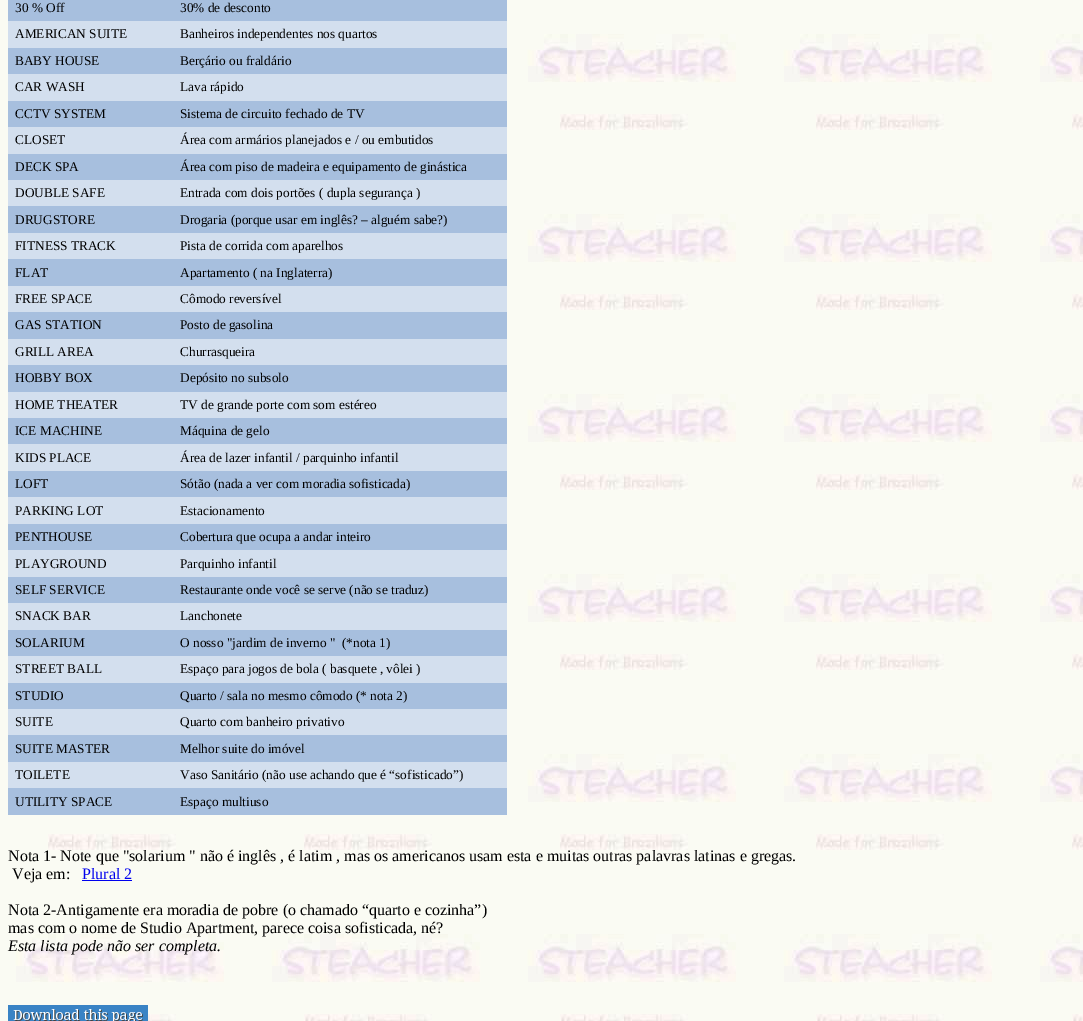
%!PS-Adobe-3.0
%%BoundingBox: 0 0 1083 1021
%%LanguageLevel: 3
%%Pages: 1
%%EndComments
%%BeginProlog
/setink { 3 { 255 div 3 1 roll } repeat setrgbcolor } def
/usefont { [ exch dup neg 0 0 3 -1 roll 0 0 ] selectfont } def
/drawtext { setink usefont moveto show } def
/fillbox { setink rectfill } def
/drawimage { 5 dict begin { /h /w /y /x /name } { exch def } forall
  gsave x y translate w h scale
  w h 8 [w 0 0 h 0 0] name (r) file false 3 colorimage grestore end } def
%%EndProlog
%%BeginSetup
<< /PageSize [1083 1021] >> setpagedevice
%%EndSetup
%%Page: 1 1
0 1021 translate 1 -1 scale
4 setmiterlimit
0 0 1083 1021 255 255 255 fillbox
(assets/img1.rgb) 0 0 1083 1021 drawimage
8 0 499 21 167 191 222 fillbox
(30 % Off) 15 12 /LiberationSerif-Regular 13.3 0 0 0 drawtext
(30% de desconto) 180 12 /LiberationSerif-Regular 13.3 0 0 0 drawtext
8 21 499 27 211 223 238 fillbox
(AMERICAN SUITE) 15 38 /LiberationSerif-Regular 13.3 0 0 0 drawtext
(Banheiros independentes nos quartos) 180 38 /LiberationSerif-Regular 13.3 0 0 0 drawtext
8 48 499 26 167 191 222 fillbox
(BABY HOUSE) 15 65 /LiberationSerif-Regular 13.3 0 0 0 drawtext
(Berçário ou fraldário) 180 65 /LiberationSerif-Regular 13.3 0 0 0 drawtext
8 74 499 27 211 223 238 fillbox
(CAR WASH) 15 91 /LiberationSerif-Regular 13.3 0 0 0 drawtext
(Lava rápido) 180 91 /LiberationSerif-Regular 13.3 0 0 0 drawtext
8 101 499 26 167 191 222 fillbox
(CCTV SYSTEM) 15 118 /LiberationSerif-Regular 13.3 0 0 0 drawtext
(Sistema de circuito fechado de TV) 180 118 /LiberationSerif-Regular 13.3 0 0 0 drawtext
8 127 499 27 211 223 238 fillbox
(CLOSET) 15 144 /LiberationSerif-Regular 13.3 0 0 0 drawtext
(Área com armários planejados e / ou embutidos) 180 144 /LiberationSerif-Regular 13.3 0 0 0 drawtext
8 154 499 26 167 191 222 fillbox
(DECK SPA) 15 171 /LiberationSerif-Regular 13.3 0 0 0 drawtext
(Área com piso de madeira e equipamento de ginástica) 180 171 /LiberationSerif-Regular 13.3 0 0 0 drawtext
8 180 499 26 211 223 238 fillbox
(DOUBLE SAFE) 15 197 /LiberationSerif-Regular 13.3 0 0 0 drawtext
(Entrada com dois portões \( dupla segurança \)) 180 197 /LiberationSerif-Regular 13.3 0 0 0 drawtext
8 206 499 27 167 191 222 fillbox
(DRUGSTORE) 15 224 /LiberationSerif-Regular 13.3 0 0 0 drawtext
(Drogaria \(porque usar em inglês? – alguém sabe?\)) 180 224 /LiberationSerif-Regular 13.3 0 0 0 drawtext
8 233 499 26 211 223 238 fillbox
(FITNESS TRACK) 15 250 /LiberationSerif-Regular 13.3 0 0 0 drawtext
(Pista de corrida com aparelhos) 180 250 /LiberationSerif-Regular 13.3 0 0 0 drawtext
8 259 499 27 167 191 222 fillbox
(FLAT) 15 277 /LiberationSerif-Regular 13.3 0 0 0 drawtext
(Apartamento \( na Inglaterra\)) 180 277 /LiberationSerif-Regular 13.3 0 0 0 drawtext
8 286 499 26 211 223 238 fillbox
(FREE SPACE) 15 303 /LiberationSerif-Regular 13.3 0 0 0 drawtext
(Cômodo reversível) 180 303 /LiberationSerif-Regular 13.3 0 0 0 drawtext
8 312 499 27 167 191 222 fillbox
(GAS STATION) 15 329 /LiberationSerif-Regular 13.3 0 0 0 drawtext
(Posto de gasolina) 180 329 /LiberationSerif-Regular 13.3 0 0 0 drawtext
8 339 499 26 211 223 238 fillbox
(GRILL AREA) 15 356 /LiberationSerif-Regular 13.3 0 0 0 drawtext
(Churrasqueira) 180 356 /LiberationSerif-Regular 13.3 0 0 0 drawtext
8 365 499 27 167 191 222 fillbox
(HOBBY BOX) 15 382 /LiberationSerif-Regular 13.3 0 0 0 drawtext
(Depósito no subsolo) 180 382 /LiberationSerif-Regular 13.3 0 0 0 drawtext
8 392 499 26 211 223 238 fillbox
(HOME THEATER) 15 409 /LiberationSerif-Regular 13.3 0 0 0 drawtext
(TV de grande porte com som estéreo) 180 409 /LiberationSerif-Regular 13.3 0 0 0 drawtext
8 418 499 26 167 191 222 fillbox
(ICE MACHINE) 15 435 /LiberationSerif-Regular 13.3 0 0 0 drawtext
(Máquina de gelo) 180 435 /LiberationSerif-Regular 13.3 0 0 0 drawtext
8 444 499 27 211 223 238 fillbox
(KIDS PLACE) 15 462 /LiberationSerif-Regular 13.3 0 0 0 drawtext
(Área de lazer infantil / parquinho infantil) 180 462 /LiberationSerif-Regular 13.3 0 0 0 drawtext
8 471 499 26 167 191 222 fillbox
(LOFT) 15 488 /LiberationSerif-Regular 13.3 0 0 0 drawtext
(Sótão \(nada a ver com moradia sofisticada\)) 180 488 /LiberationSerif-Regular 13.3 0 0 0 drawtext
8 497 499 27 211 223 238 fillbox
(PARKING LOT) 15 515 /LiberationSerif-Regular 13.3 0 0 0 drawtext
(Estacionamento) 180 515 /LiberationSerif-Regular 13.3 0 0 0 drawtext
8 524 499 26 167 191 222 fillbox
(PENTHOUSE) 15 541 /LiberationSerif-Regular 13.3 0 0 0 drawtext
(Cobertura que ocupa a andar inteiro) 180 541 /LiberationSerif-Regular 13.3 0 0 0 drawtext
8 550 499 27 211 223 238 fillbox
(PLAYGROUND) 15 568 /LiberationSerif-Regular 13.3 0 0 0 drawtext
(Parquinho infantil) 180 568 /LiberationSerif-Regular 13.3 0 0 0 drawtext
8 577 499 26 167 191 222 fillbox
(SELF SERVICE) 15 594 /LiberationSerif-Regular 13.3 0 0 0 drawtext
(Restaurante onde você se serve \(não se traduz\)) 180 594 /LiberationSerif-Regular 13.3 0 0 0 drawtext
8 603 499 27 211 223 238 fillbox
(SNACK BAR) 15 620 /LiberationSerif-Regular 13.3 0 0 0 drawtext
(Lanchonete) 180 620 /LiberationSerif-Regular 13.3 0 0 0 drawtext
8 630 499 26 167 191 222 fillbox
(SOLARIUM) 15 647 /LiberationSerif-Regular 13.3 0 0 0 drawtext
(O nosso "jardim de inverno "  \(*nota 1\)) 180 647 /LiberationSerif-Regular 13.3 0 0 0 drawtext
8 656 499 27 211 223 238 fillbox
(STREET BALL) 15 673 /LiberationSerif-Regular 13.3 0 0 0 drawtext
(Espaço para jogos de bola \( basquete , vôlei \)) 180 673 /LiberationSerif-Regular 13.3 0 0 0 drawtext
8 683 499 26 167 191 222 fillbox
(STUDIO) 15 700 /LiberationSerif-Regular 13.3 0 0 0 drawtext
(Quarto / sala no mesmo cômodo \(* nota 2\)) 180 700 /LiberationSerif-Regular 13.3 0 0 0 drawtext
8 709 499 26 211 223 238 fillbox
(SUITE) 15 726 /LiberationSerif-Regular 13.3 0 0 0 drawtext
(Quarto com banheiro privativo) 180 726 /LiberationSerif-Regular 13.3 0 0 0 drawtext
8 735 499 27 167 191 222 fillbox
(SUITE MASTER) 15 753 /LiberationSerif-Regular 13.3 0 0 0 drawtext
(Melhor suite do imóvel) 180 753 /LiberationSerif-Regular 13.3 0 0 0 drawtext
8 762 499 26 211 223 238 fillbox
(TOILETE) 15 779 /LiberationSerif-Regular 13.3 0 0 0 drawtext
(Vaso Sanitário \(não use achando que é “sofisticado”\)) 180 779 /LiberationSerif-Regular 13.3 0 0 0 drawtext
8 788 499 27 167 191 222 fillbox
(UTILITY SPACE) 15 806 /LiberationSerif-Regular 13.3 0 0 0 drawtext
(Espaço multiuso) 180 806 /LiberationSerif-Regular 13.3 0 0 0 drawtext
(Nota 1- Note que "solarium " não é inglês , é latim , mas os americanos usam esta e muitas outras palavras latinas e gregas.) 8 861 /LiberationSerif-Regular 16 0 0 0 drawtext
(Veja em:) 12 879 /LiberationSerif-Regular 16 0 0 0 drawtext
(Plural 2) 82 879 /LiberationSerif-Regular 16 0 0 238 drawtext
82 880 50 1 0 0 238 fillbox
(Nota 2-Antigamente era moradia de pobre \(o chamado “quarto e cozinha”\)) 8 915 /LiberationSerif-Regular 16 0 0 0 drawtext
(mas com o nome de Studio Apartment, parece coisa sofisticada, né?) 8 933 /LiberationSerif-Regular 16 0 0 0 drawtext
(Esta lista pode não ser completa.) 8 951 /LiberationSerif-Italic 16 0 0 0 drawtext
(assets/img2.rgb) 8 1005 140 16 drawimage
showpage
%%EOF
